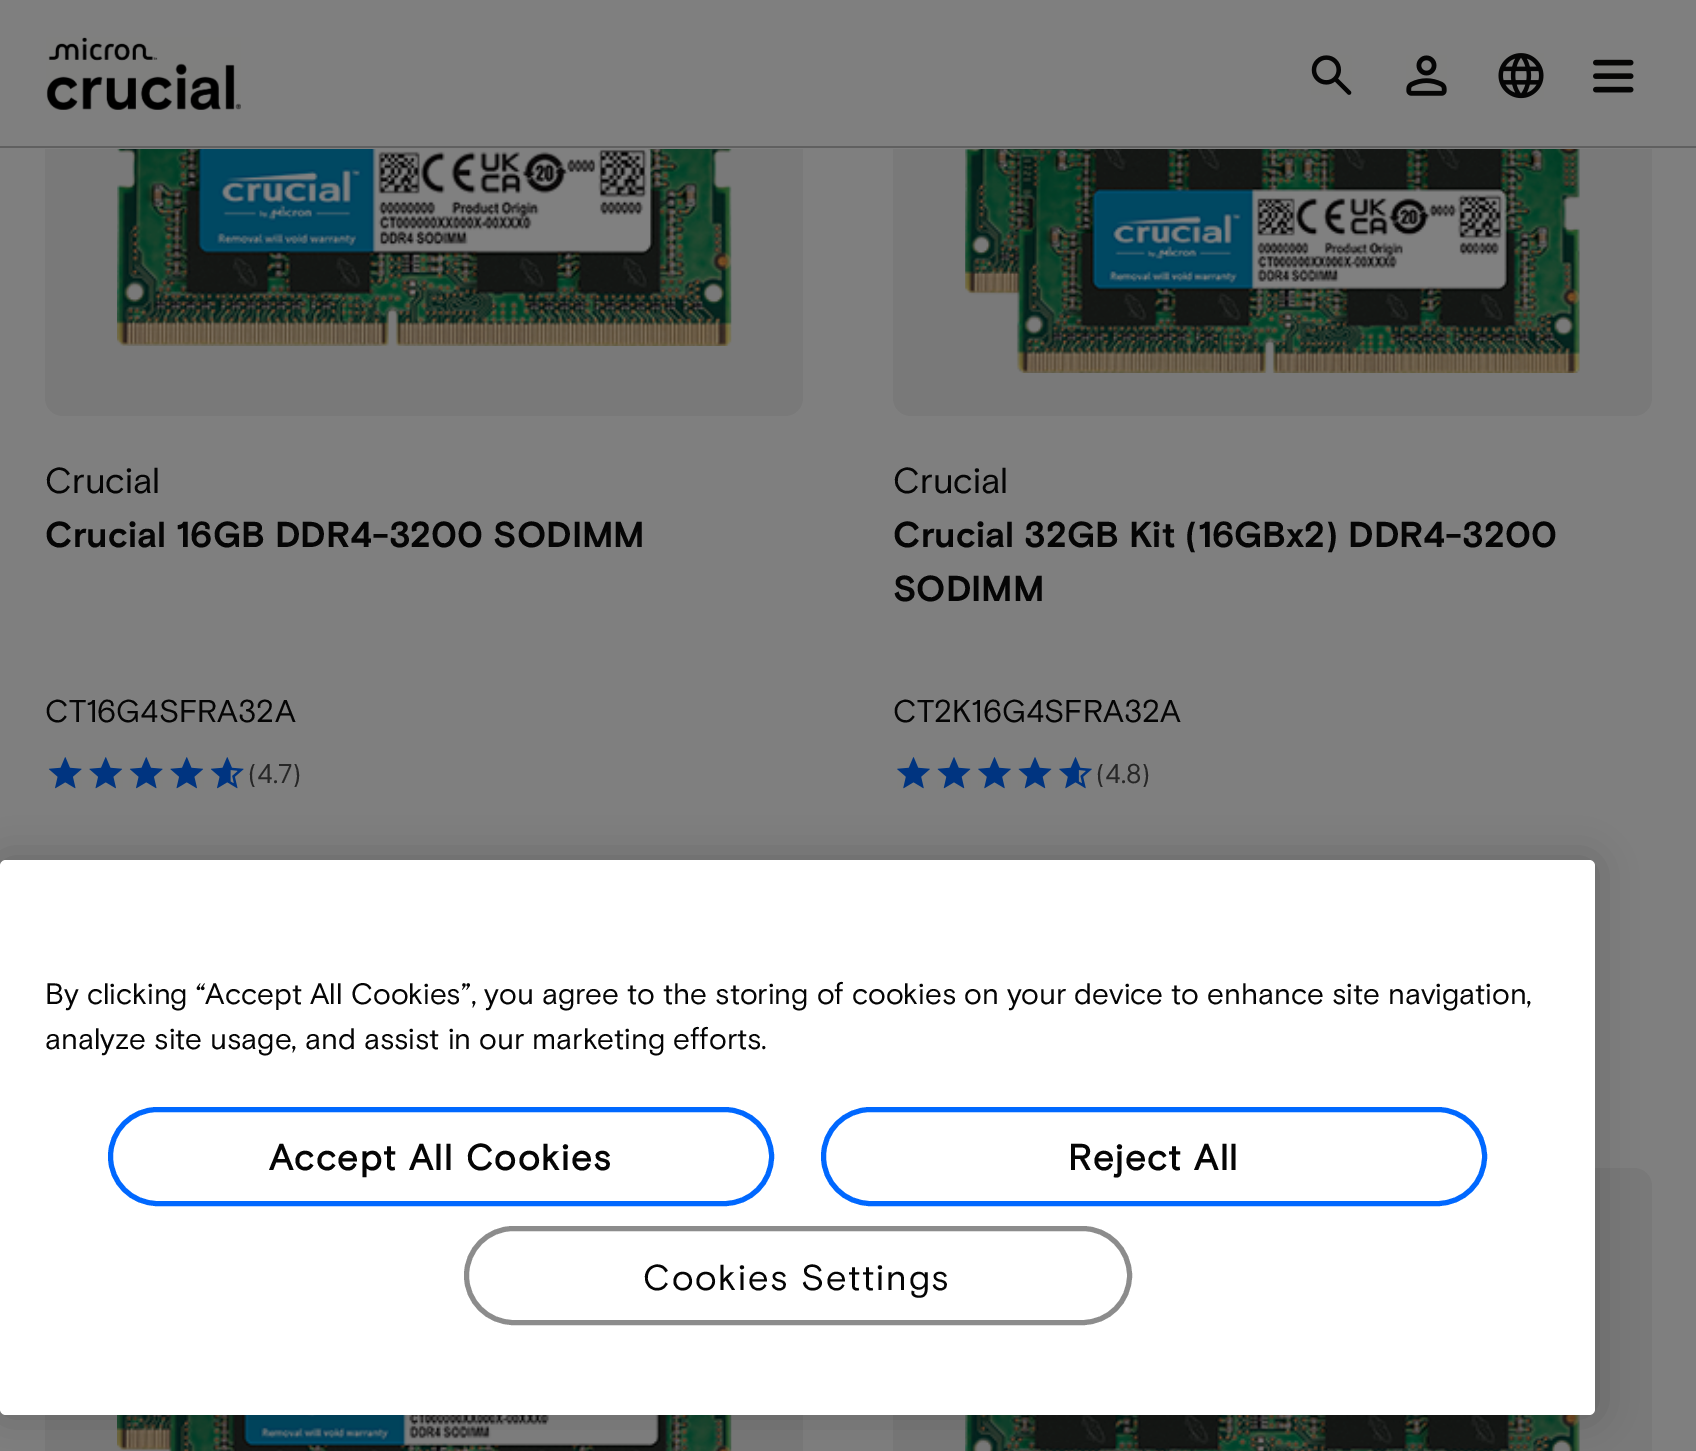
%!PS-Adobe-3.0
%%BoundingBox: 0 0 1696 1451
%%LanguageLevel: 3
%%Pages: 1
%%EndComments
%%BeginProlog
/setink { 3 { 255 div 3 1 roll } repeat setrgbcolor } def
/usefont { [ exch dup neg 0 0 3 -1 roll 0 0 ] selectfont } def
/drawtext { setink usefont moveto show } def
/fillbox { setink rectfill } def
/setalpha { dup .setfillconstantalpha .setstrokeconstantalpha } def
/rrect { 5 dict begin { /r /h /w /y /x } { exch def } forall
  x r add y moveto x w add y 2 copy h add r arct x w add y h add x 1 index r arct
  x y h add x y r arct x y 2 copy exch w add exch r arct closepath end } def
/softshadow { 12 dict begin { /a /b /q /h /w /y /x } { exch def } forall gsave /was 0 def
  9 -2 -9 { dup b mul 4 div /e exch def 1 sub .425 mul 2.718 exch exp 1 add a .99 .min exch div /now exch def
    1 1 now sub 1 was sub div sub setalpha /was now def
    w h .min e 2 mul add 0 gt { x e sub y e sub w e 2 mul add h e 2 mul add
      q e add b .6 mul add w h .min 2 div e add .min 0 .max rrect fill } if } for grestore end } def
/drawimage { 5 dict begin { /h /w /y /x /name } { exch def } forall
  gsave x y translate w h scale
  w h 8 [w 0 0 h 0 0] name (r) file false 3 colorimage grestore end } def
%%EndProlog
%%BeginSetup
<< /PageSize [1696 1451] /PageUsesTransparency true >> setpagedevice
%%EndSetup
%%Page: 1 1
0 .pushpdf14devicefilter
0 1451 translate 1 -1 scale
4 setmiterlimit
0 0 1696 1451 127 127 127 fillbox
121 121 121 setink
45 11 758 405 18 rrect fill
893 11 759 405 18 rrect fill
45 11 1607 138 127 127 127 fillbox
0 146 1696 2 96 96 96 fillbox
(assets/img1.rgb) 46 37 195 73 drawimage
(assets/img2.rgb) 1311 55 41 40 drawimage
(assets/img3.rgb) 1406 55 41 41 drawimage
(assets/img4.rgb) 1498 53 46 46 drawimage
(assets/img5.rgb) 1593 59 41 34 drawimage
(assets/img6.rgb) 117 149 615 197 drawimage
(Crucial) 45 493 /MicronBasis-Regular 36 5 5 5 drawtext
(Crucial 16GB DDR4-3200 SODIMM) 45 547 /MicronBasis-Bold 36 5 5 5 drawtext
(CT16G4SFRA32A) 45 722 /MicronBasis-Regular 31.5 5 5 5 drawtext
(assets/img7.rgb) 48 757 34 32 drawimage
(assets/img8.rgb) 89 757 34 32 drawimage
(assets/img7.rgb) 129 757 34 32 drawimage
(assets/img8.rgb) 170 757 34 32 drawimage
(assets/img9.rgb) 211 757 33 32 drawimage
(\(4.7\)) 248 783 /MicronBasis-Regular 27 39 39 39 drawtext
(assets/img10.rgb) 965 149 615 224 drawimage
(Crucial) 893 493 /MicronBasis-Regular 36 5 5 5 drawtext
(Crucial 32GB Kit \(16GBx2\) DDR4-3200) 893 547 /MicronBasis-Bold 36 5 5 5 drawtext
(SODIMM) 893 601 /MicronBasis-Bold 36 5 5 5 drawtext
(CT2K16G4SFRA32A) 893 722 /MicronBasis-Regular 31.5 5 5 5 drawtext
(assets/img11.rgb) 897 757 33 32 drawimage
(assets/img12.rgb) 937 757 34 32 drawimage
(assets/img11.rgb) 978 757 33 32 drawimage
(assets/img12.rgb) 1018 757 34 32 drawimage
(assets/img13.rgb) 1059 757 33 32 drawimage
(\(4.8\)) 1096 783 /MicronBasis-Regular 27 39 39 39 drawtext
45 1415 758 36 121 121 121 fillbox
(assets/img14.rgb) 117 1415 615 36 drawimage
893 1168 759 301 18 rrect fill
(assets/img15.rgb) 965 1415 615 36 drawimage
0 0 0 setink
0 860 1595 555 6 20 0.2 softshadow
255 255 255 setink
0 860 1595 555 6 rrect fill
(By clicking “Accept All Cookies”, you agree to the storing of cookies on your device to enhance site navigation,) 45 1004 /MicronBasis-Regular 29.52 5 5 5 drawtext
(analyze site usage, and assist in our marketing efforts.) 45 1049 /MicronBasis-Regular 29.52 5 5 5 drawtext
0 104 255 setink
5 setlinewidth
110.5 1109.5 661 94 47 rrect stroke
/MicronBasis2-Bold 36 usefont
5 5 5 setink
269 1170 moveto 1.75 0 (Accept All Cookies) ashow
0 104 255 setink
823.5 1109.5 661 94 47 rrect stroke
5 5 5 setink
1068 1170 moveto 1.75 0 (Reject All) ashow
140 140 140 setink
466.5 1228.5 663 94 47 rrect stroke
/MicronBasis-Regular 36 usefont
5 5 5 setink
643 1290 moveto 1.75 0 (Cookies Settings) ashow
.poppdf14devicefilter showpage
%%EOF
